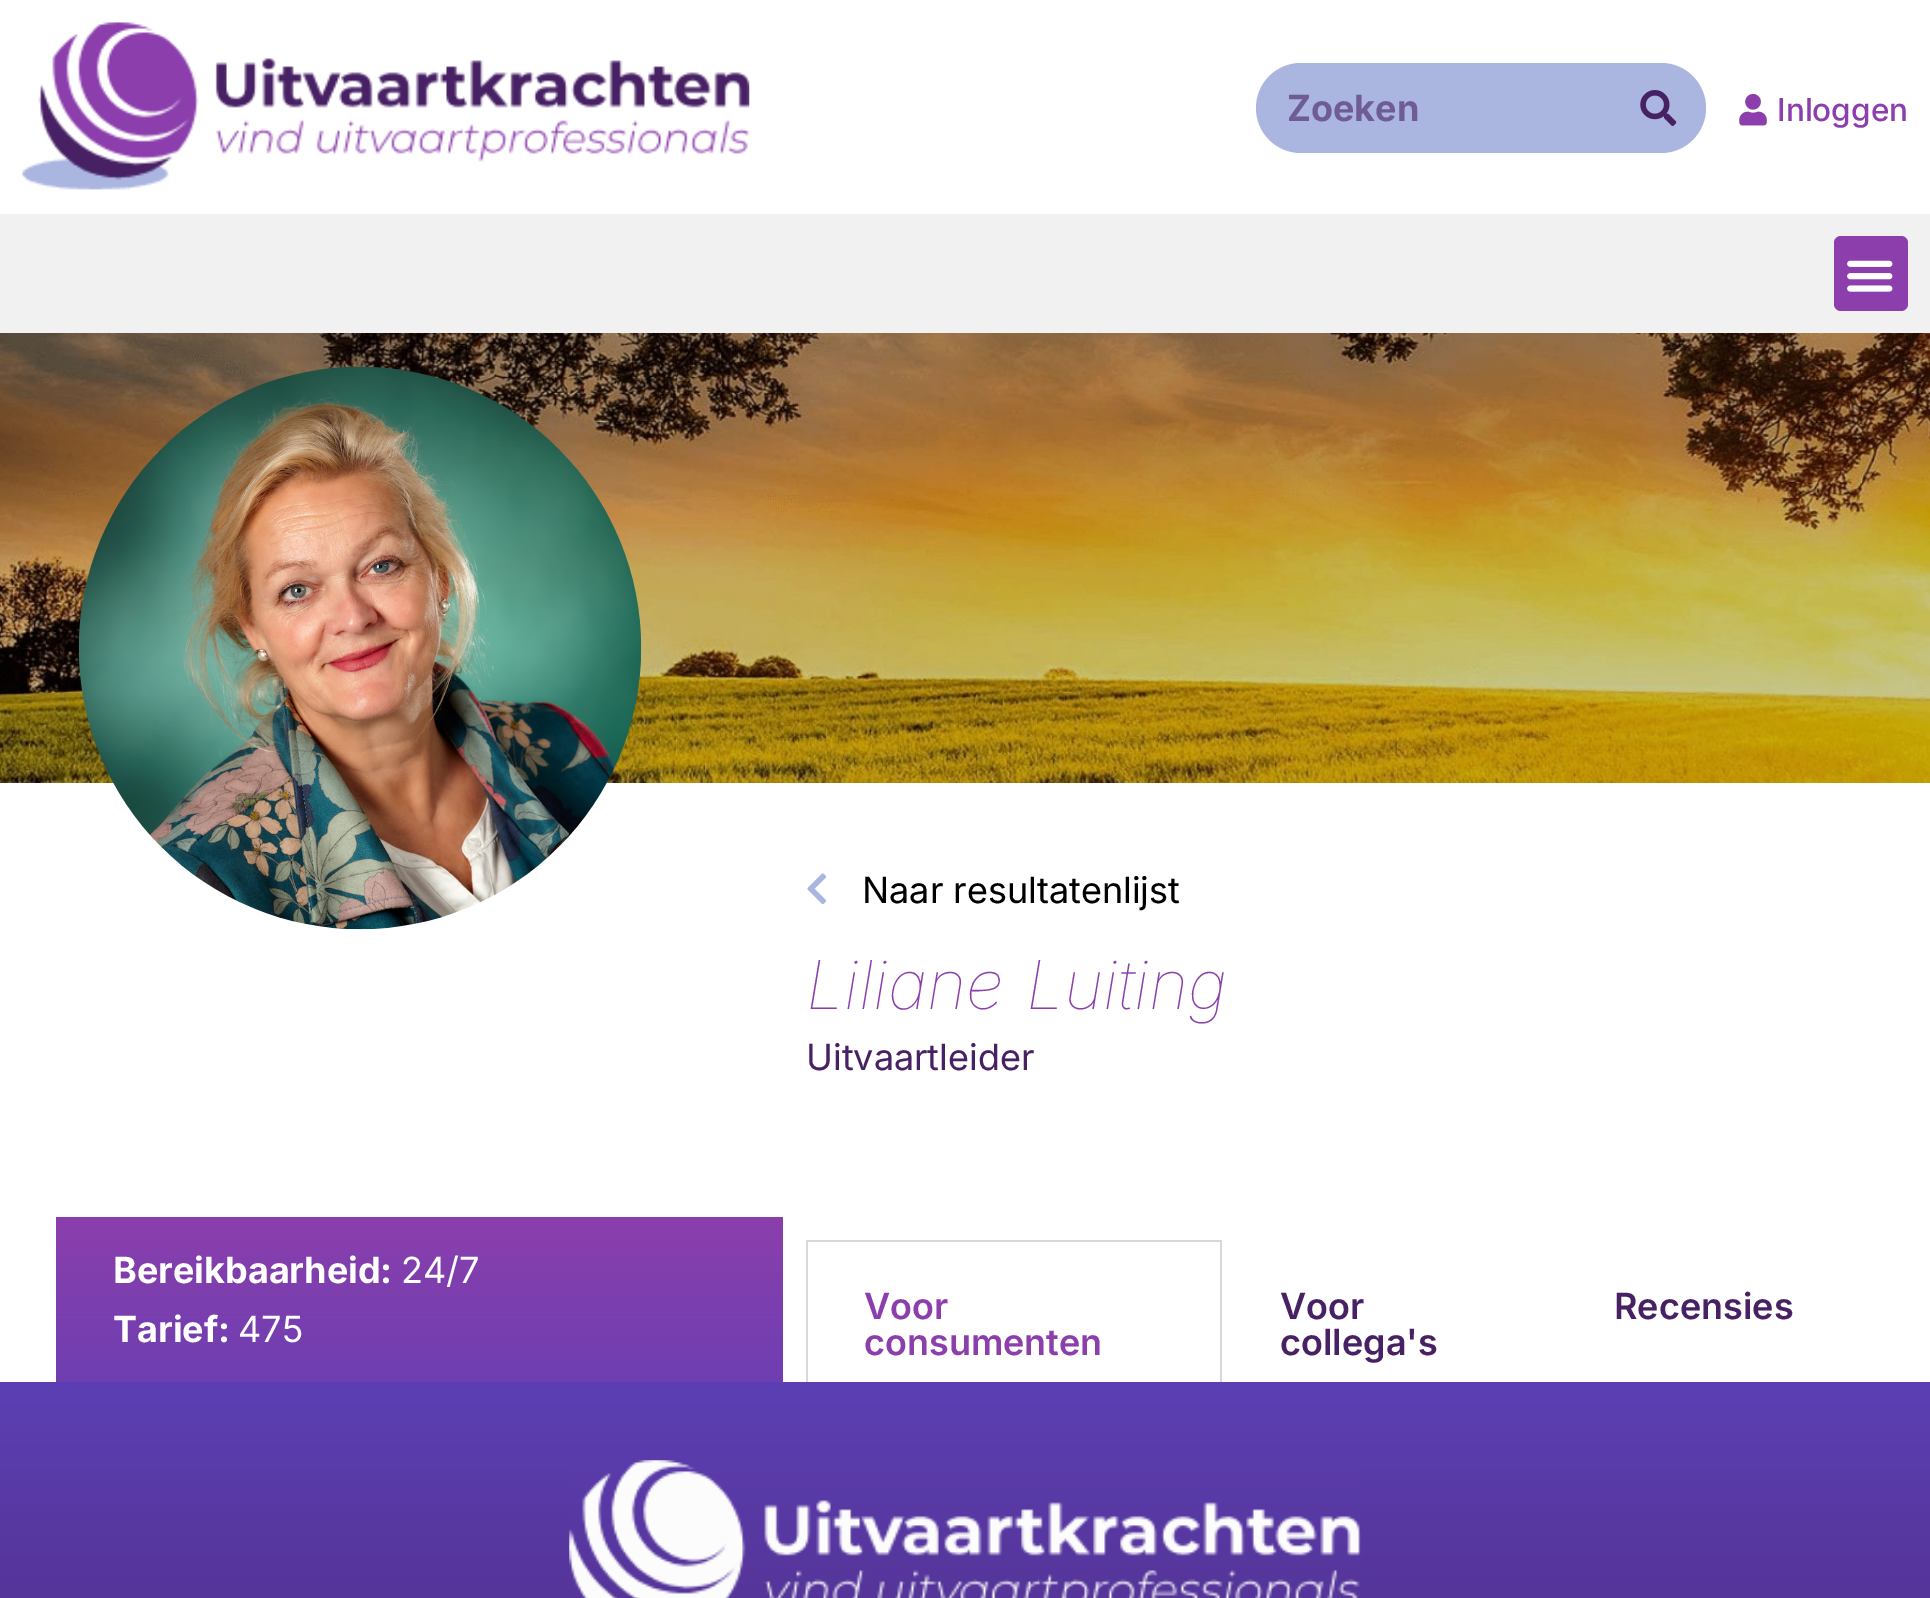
%!PS-Adobe-3.0
%%BoundingBox: 0 0 1930 1598
%%LanguageLevel: 3
%%Pages: 1
%%EndComments
%%BeginProlog
/setink { 3 { 255 div 3 1 roll } repeat setrgbcolor } def
/usefont { [ exch dup neg 0 0 3 -1 roll 0 0 ] selectfont } def
/drawtext { setink usefont moveto show } def
/fillbox { setink rectfill } def
/rrect { 5 dict begin { /r /h /w /y /x } { exch def } forall
  x r add y moveto x w add y 2 copy h add r arct x w add y h add x 1 index r arct
  x y h add x y r arct x y 2 copy exch w add exch r arct closepath end } def
/drawimage { 5 dict begin { /h /w /y /x /name } { exch def } forall
  gsave x y translate w h scale
  w h 8 [w 0 0 h 0 0] name (r) file false 3 colorimage grestore end } def
%%EndProlog
%%BeginSetup
<< /PageSize [1930 1598] >> setpagedevice
%%EndSetup
%%Page: 1 1
0 1598 translate 1 -1 scale
4 setmiterlimit
0 0 1930 1598 255 255 255 fillbox
(assets/img1.rgb) 22 22 728 168 drawimage
170 181 224 setink
1256 63 450 90 45 rrect fill
(Zoeken) 1287 121 /Inter-Bold 36 111 92 150 drawtext
(assets/img2.rgb) 1640 90 37 36 drawimage
(assets/img3.rgb) 1739 93 28 33 drawimage
(Inloggen) 1777 121 /Inter-Medium 31.5 139 62 172 drawtext
0 214 1930 119 241 241 241 fillbox
139 62 172 setink
1834 236 74 75 7 rrect fill
(assets/img4.rgb) 1847 260 46 32 drawimage
(assets/img5.rgb) 0 333 1930 450 drawimage
(assets/img6.rgb) 78 366 564 564 drawimage
(assets/img7.rgb) 807 873 19 31 drawimage
(Naar resultatenlijst) 862 903 /Inter-Regular 36 0 0 0 drawtext
(Liliane) 806 1009 /Inter-ThinItalic 67.5 139 62 172 drawtext
(Luiting) 1026 1009 /Inter-ThinItalic 67.5 139 62 172 drawtext
(Uitvaartleider) 806 1070 /Inter-Regular 36 71 33 100 drawtext
gsave 56 1217 moveto 783 1217 lineto 783 1382 lineto 56 1382 lineto closepath clip newpath
<< /ShadingType 2 /ColorSpace /DeviceRGB /Coords [420 1483 420 1217] /Extend [true true] /Function << /FunctionType 2 /Domain [0 1] /C0 [0.361 0.247 0.706] /C1 [0.545 0.243 0.675] /N 1 >> >> shfill grestore
(Bereikbaarheid:) 113 1283 /Inter-Bold 36 255 255 255 drawtext
(24/7) 401 1283 /Inter-Regular 36 255 255 255 drawtext
(Tarief:) 113 1342 /Inter-Bold 36 255 255 255 drawtext
(475) 238 1342 /Inter-Regular 36 255 255 255 drawtext
806 1240 416 2 213 216 220 fillbox
1220 1240 2 142 213 216 220 fillbox
806 1240 2 142 213 216 220 fillbox
(Voor) 864 1319 /Inter-SemiBold 36 139 62 172 drawtext
(consumenten) 864 1355 /Inter-SemiBold 36 139 62 172 drawtext
(Voor) 1280 1319 /Inter-SemiBold 36 71 33 100 drawtext
(collega's) 1280 1355 /Inter-SemiBold 36 71 33 100 drawtext
(Recensies) 1614 1319 /Inter-SemiBold 36 71 33 100 drawtext
gsave 0 1382 moveto 1930 1382 lineto 1930 1598 lineto 0 1598 lineto closepath clip newpath
<< /ShadingType 2 /ColorSpace /DeviceRGB /Coords [965 1382 965 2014] /Extend [true true] /Function << /FunctionType 2 /Domain [0 1] /C0 [0.361 0.247 0.706] /C1 [0.278 0.129 0.392] /N 1 >> >> shfill grestore
(assets/img8.rgb) 569 1460 792 138 drawimage
showpage
%%EOF
